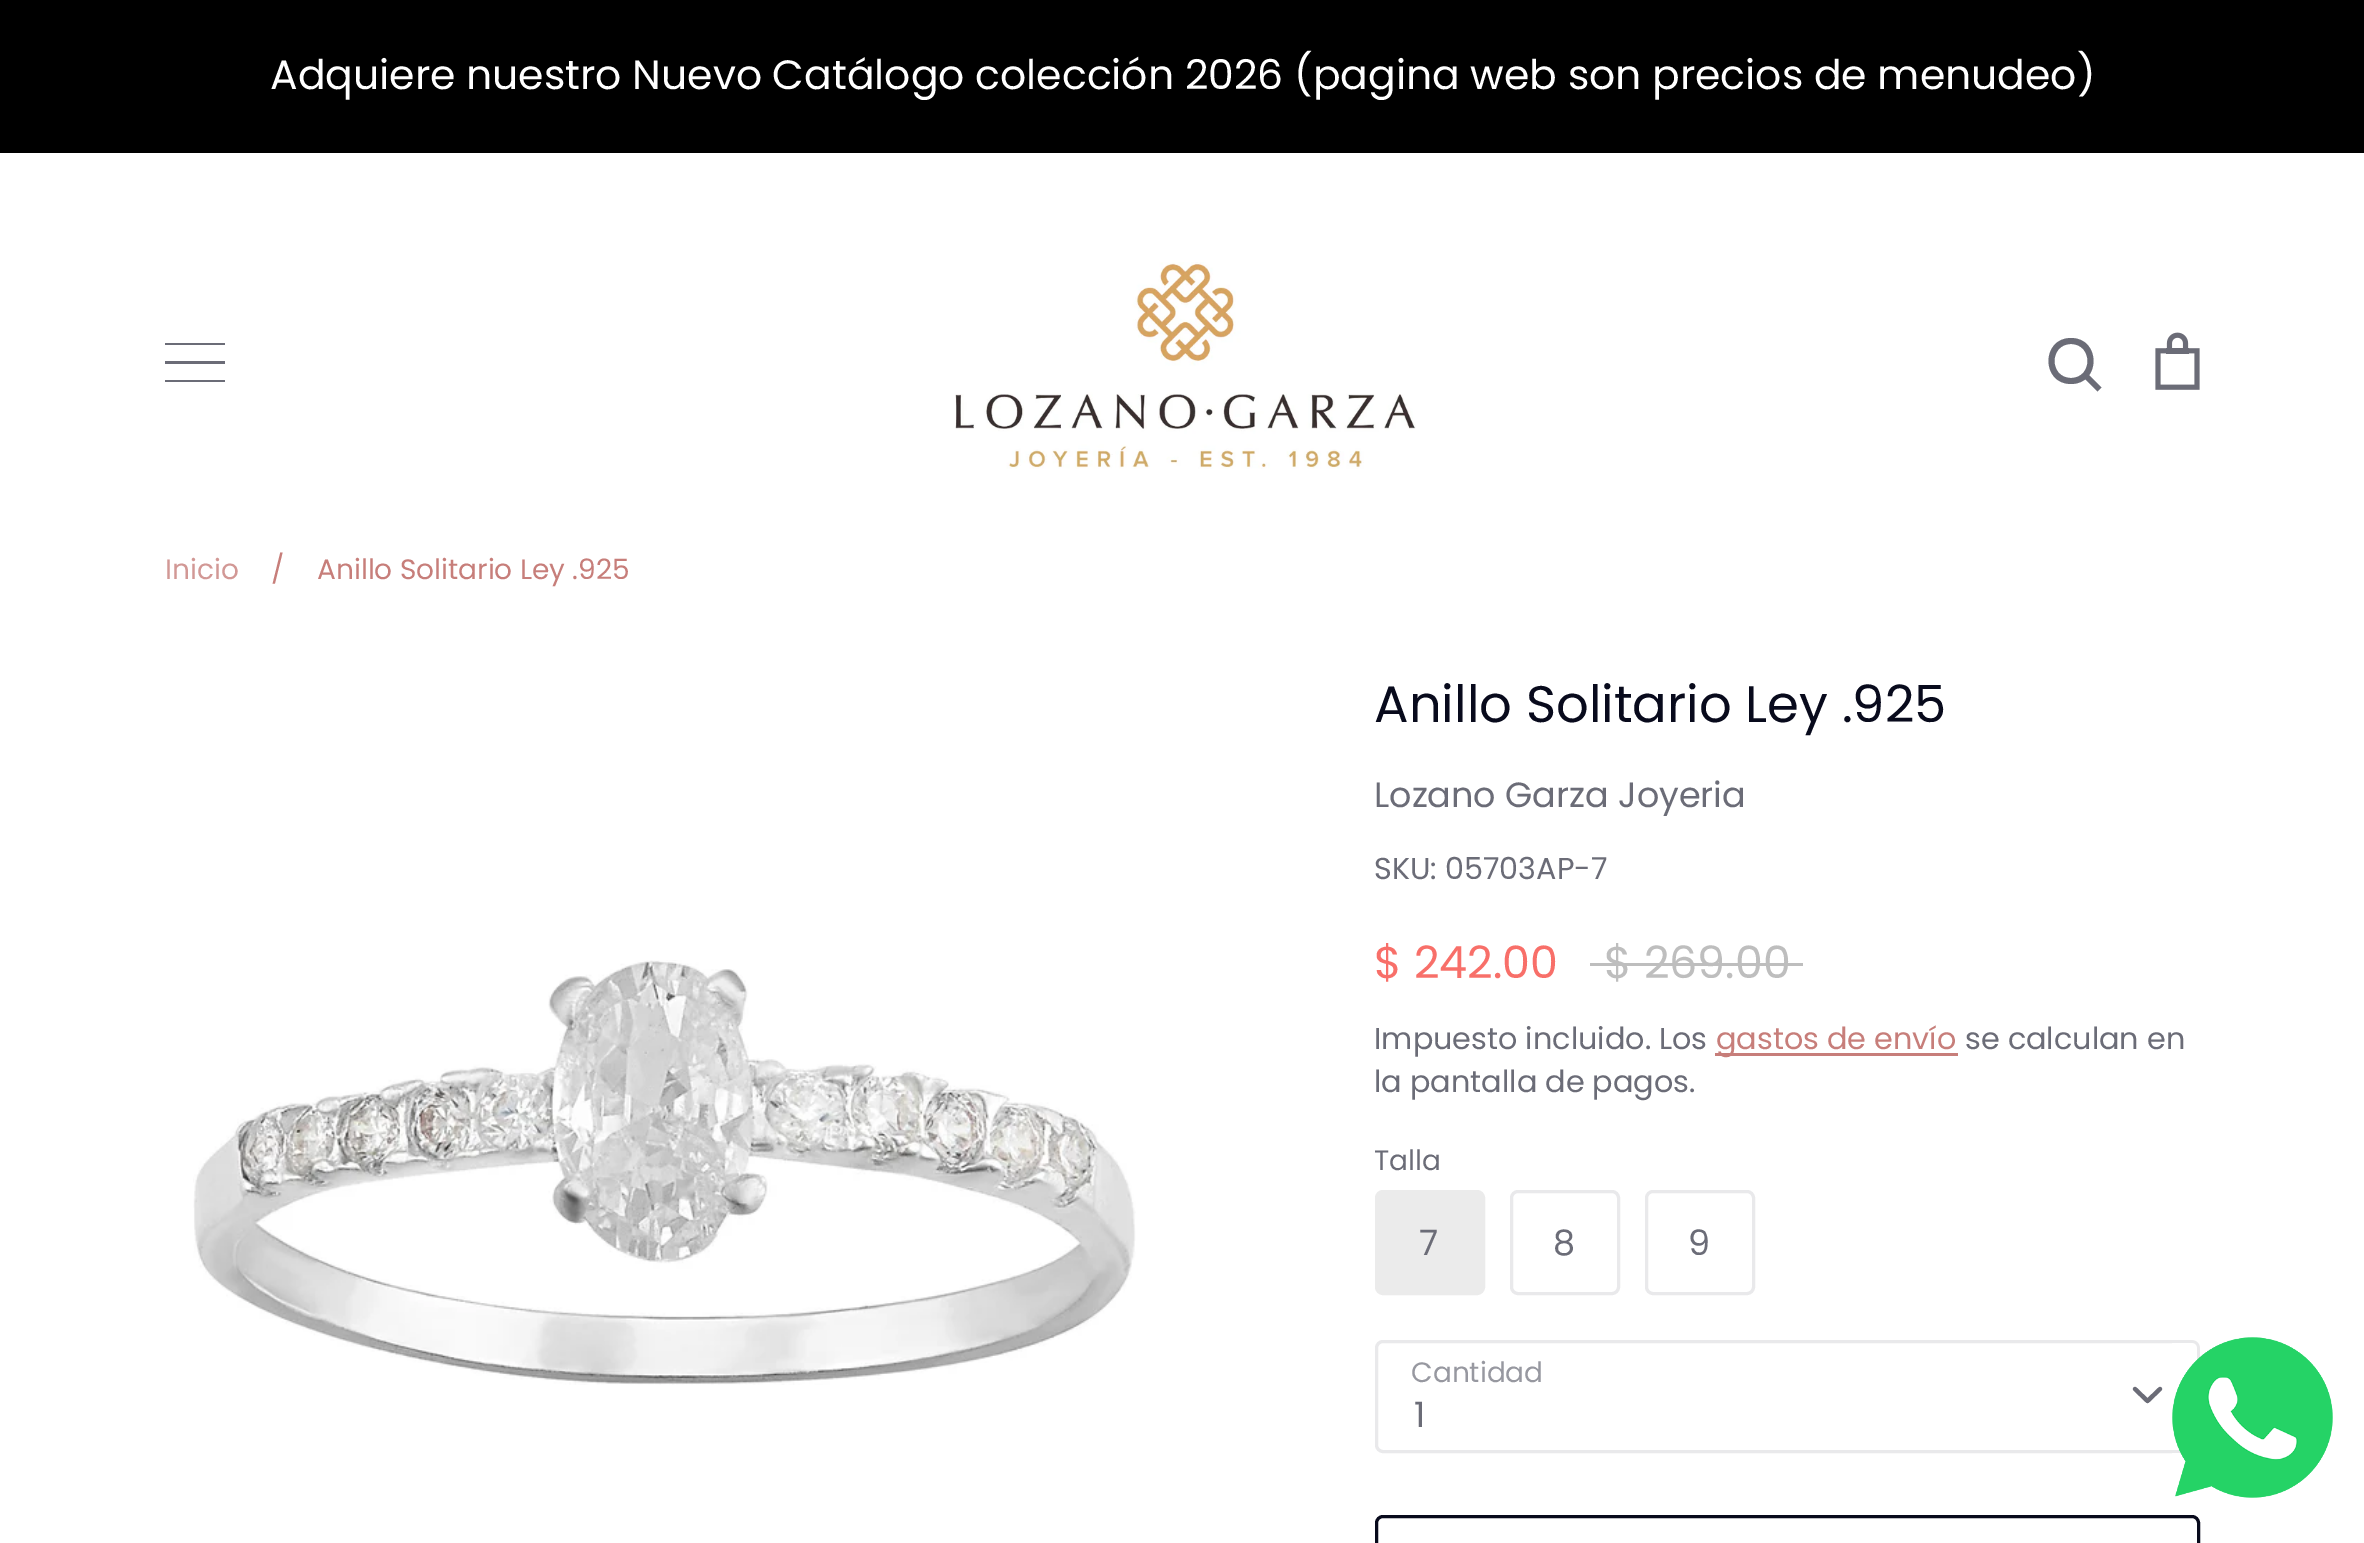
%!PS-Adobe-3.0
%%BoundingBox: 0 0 2364 1543
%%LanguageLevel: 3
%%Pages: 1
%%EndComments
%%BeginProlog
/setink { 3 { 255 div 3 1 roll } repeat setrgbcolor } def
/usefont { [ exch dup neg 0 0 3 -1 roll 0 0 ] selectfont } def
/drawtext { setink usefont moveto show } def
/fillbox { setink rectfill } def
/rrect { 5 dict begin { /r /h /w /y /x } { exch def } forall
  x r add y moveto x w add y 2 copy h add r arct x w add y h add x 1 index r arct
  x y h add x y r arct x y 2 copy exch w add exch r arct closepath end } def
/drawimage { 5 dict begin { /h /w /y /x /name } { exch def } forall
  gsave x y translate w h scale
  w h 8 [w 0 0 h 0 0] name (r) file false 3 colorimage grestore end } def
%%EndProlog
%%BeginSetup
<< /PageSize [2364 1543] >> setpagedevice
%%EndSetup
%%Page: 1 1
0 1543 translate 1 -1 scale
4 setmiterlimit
0 0 2364 1543 255 255 255 fillbox
0 0 2364 153 0 0 0 fillbox
/Poppins-Regular 40.95 usefont
255 255 255 setink
270 89 moveto -0.25 0 32 (Adquiere nuestro Nuevo Catálogo colección 2026 \(pagina web son precios de menudeo\)) widthshow
165 343 60 2 107 108 119 fillbox
165 361 60 3 107 108 119 fillbox
165 380 60 2 107 108 119 fillbox
(assets/img1.rgb) 955 262 461 207 drawimage
2101.5 387.5 moveto 2097.5 391.5 lineto 2084.5 378.5 lineto 2088.5 374.5 lineto closepath fill
2071 384 moveto 2041 384 2041 338 2071 338 curveto 2101 338 2101 384 2071 384 curveto closepath 2071 378 moveto 2093 378 2093 344 2071 344 curveto 2049 344 2049 378 2071 378 curveto closepath fill
(assets/img2.rgb) 2155 332 45 58 drawimage
(Inicio) 165 579 /Poppins-Regular 28 210 152 149 drawtext
(/) 271 579 /Poppins-Regular 28 199 126 122 drawtext
(Anillo Solitario Ley .925) 317 579 /Poppins-Regular 28 199 126 122 drawtext
(assets/img3.rgb) 193 960 943 425 drawimage
(Anillo Solitario Ley .925) 1374 722 /Poppins-Regular 51.25 8 10 28 drawtext
(Lozano Garza Joyeria) 1374 807 /Poppins-Regular 35 107 108 119 drawtext
(SKU: 05703AP-7) 1374 879 /Poppins-Regular 30.25 107 108 119 drawtext
($ 242.00) 1374 978 /Poppins-Regular 44.5 248 111 105 drawtext
($ 269.00) 1604 978 /Poppins-Regular 44.5 190 190 190 drawtext
1590 963 213 3 190 190 190 fillbox
(Impuesto incluido. Los) 1374 1049 /Poppins-Regular 30.25 107 108 119 drawtext
1715 1053 243 3 199 126 122 fillbox
(gastos de envío) 1716 1049 /Poppins-Regular 30.25 199 126 122 drawtext
(se calculan en) 1965 1049 /Poppins-Regular 30.25 107 108 119 drawtext
(la pantalla de pagos.) 1374 1092 /Poppins-Regular 30.25 107 108 119 drawtext
(Talla) 1374 1170 /Poppins-Regular 28 107 108 119 drawtext
235 235 235 setink
1376.5 1191.5 107 102 6.5 rrect gsave fill grestore
3 setlinewidth
stroke
(7) 1419 1255 /Poppins-Regular 35 107 108 119 drawtext
233 233 235 setink
1511.5 1191.5 107 102 6.5 rrect stroke
(8) 1553 1255 /Poppins-Regular 35 107 108 119 drawtext
233 233 235 setink
1646.5 1191.5 107 102 6.5 rrect stroke
(9) 1688 1255 /Poppins-Regular 35 107 108 119 drawtext
(Cantidad) 1411 1382 /Poppins-Regular 28 151 152 160 drawtext
233 233 235 setink
1376.5 1341.5 822 110 6.5 rrect stroke
107 108 119 setink
4.2 setlinewidth
1 setlinecap
1 setlinejoin
2135 1389 moveto 2147.5 1401 lineto 2160 1389 lineto stroke
(1) 1414 1427 /Poppins-Regular 35 107 108 119 drawtext
8 10 28 setink
3 setlinewidth
0 setlinecap
0 setlinejoin
1376.5 1516.5 822 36 6.5 rrect stroke
(assets/img4.rgb) 2172 1337 161 161 drawimage
(assets/img5.rgb) 2172 1337 161 161 drawimage
showpage
%%EOF
